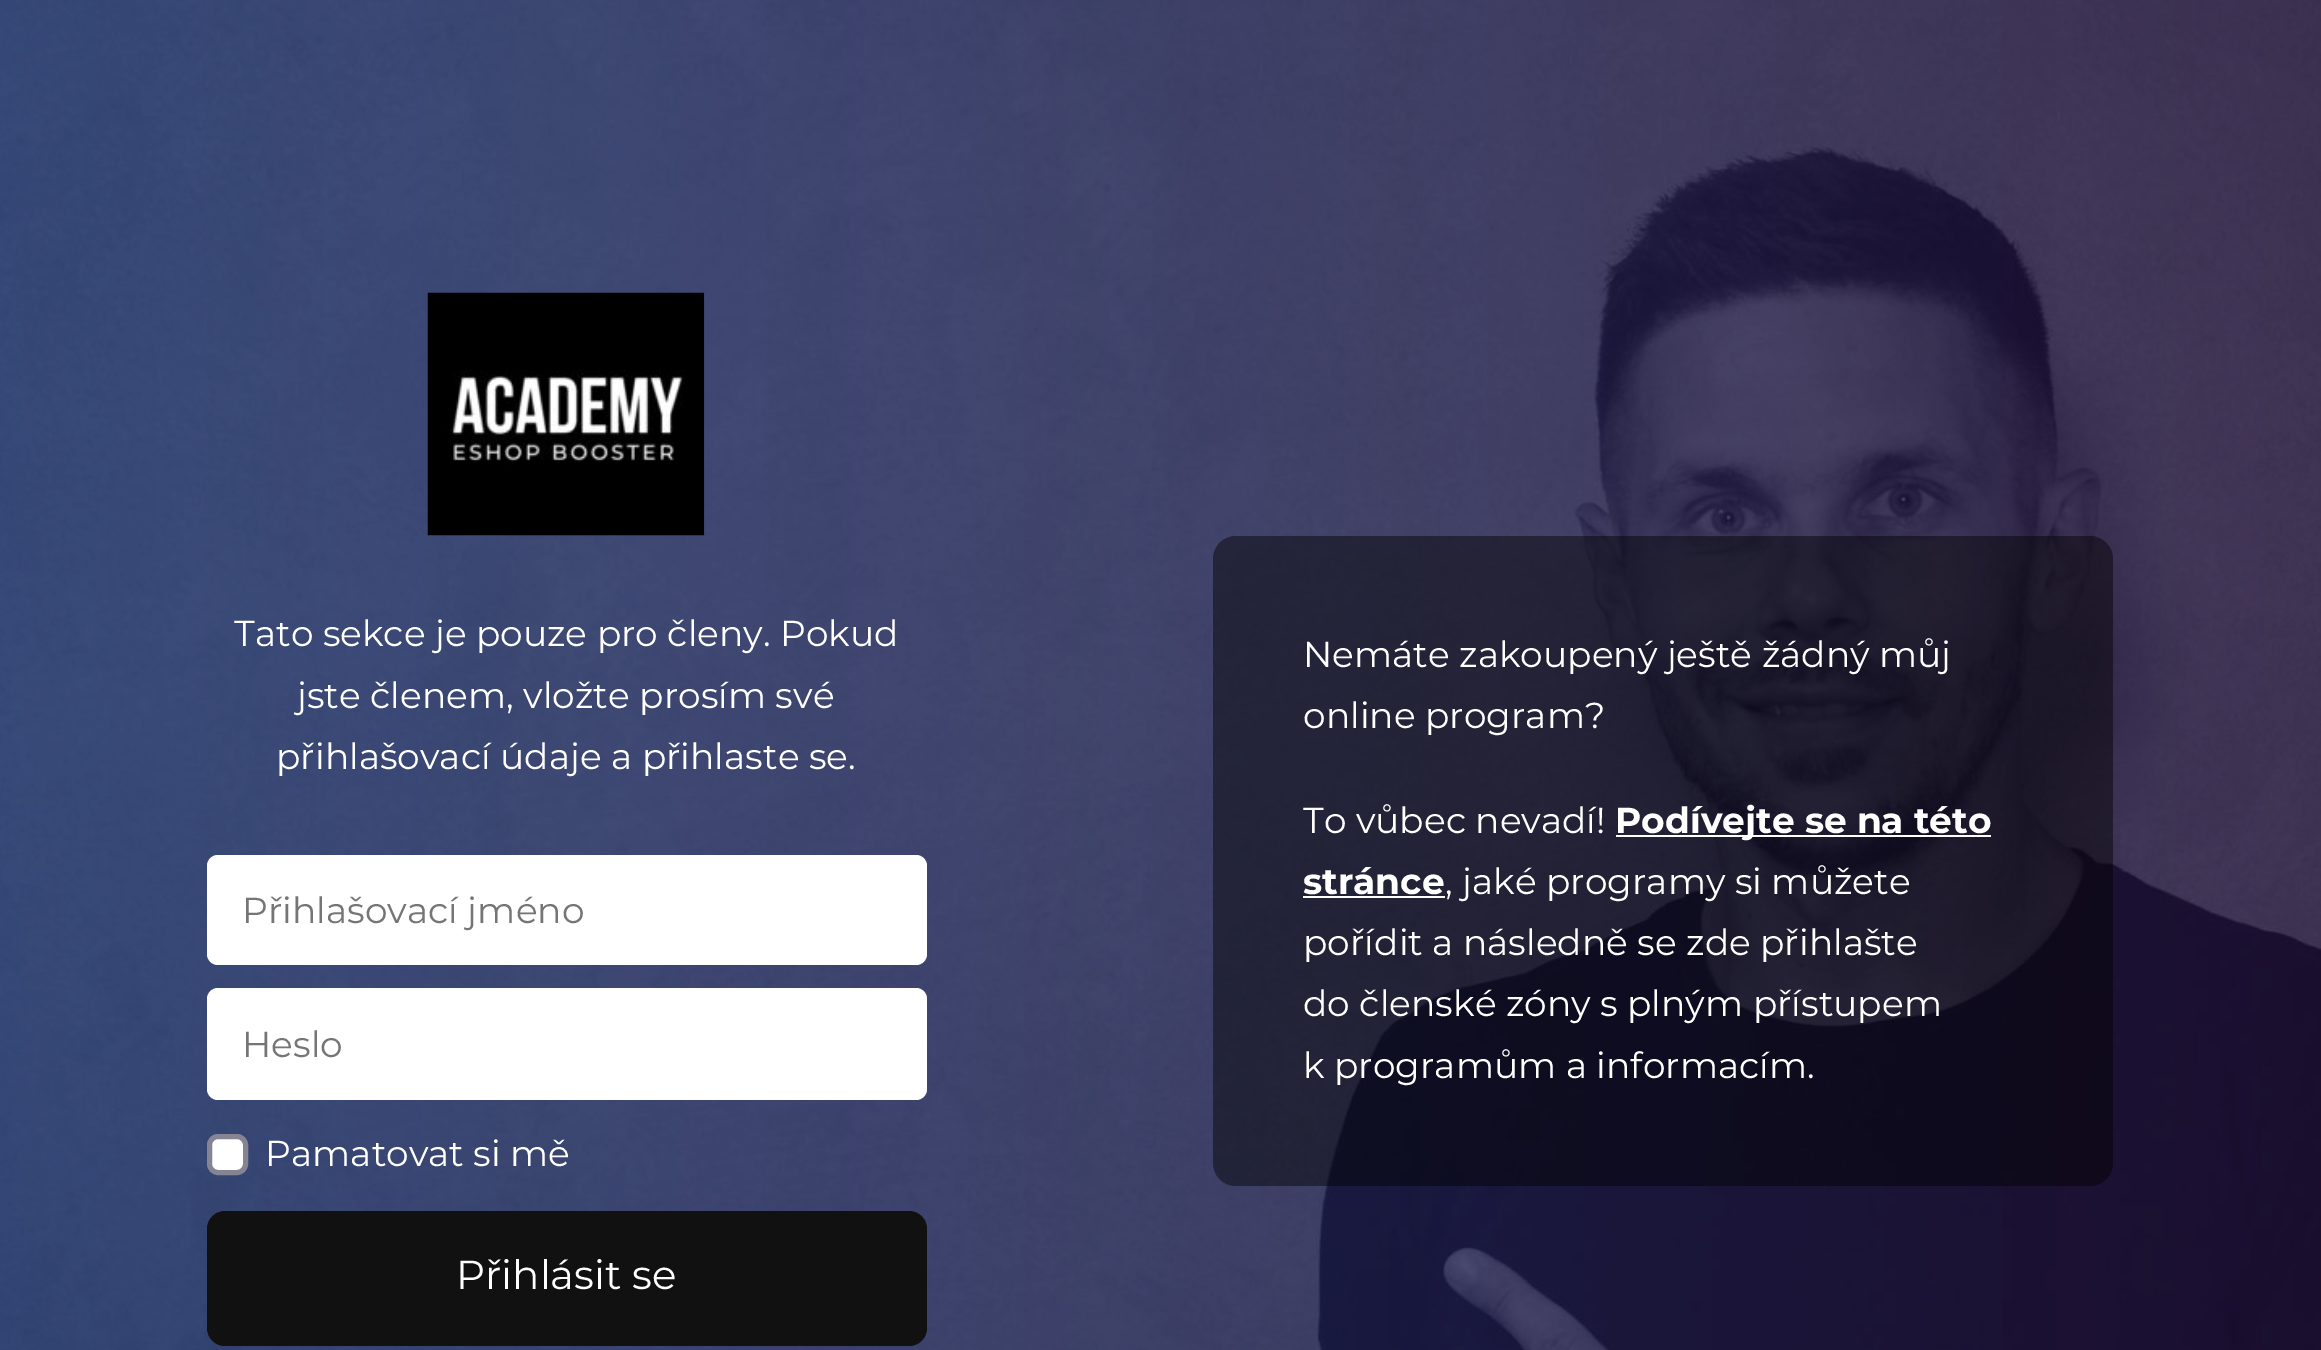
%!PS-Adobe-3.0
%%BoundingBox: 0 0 2321 1350
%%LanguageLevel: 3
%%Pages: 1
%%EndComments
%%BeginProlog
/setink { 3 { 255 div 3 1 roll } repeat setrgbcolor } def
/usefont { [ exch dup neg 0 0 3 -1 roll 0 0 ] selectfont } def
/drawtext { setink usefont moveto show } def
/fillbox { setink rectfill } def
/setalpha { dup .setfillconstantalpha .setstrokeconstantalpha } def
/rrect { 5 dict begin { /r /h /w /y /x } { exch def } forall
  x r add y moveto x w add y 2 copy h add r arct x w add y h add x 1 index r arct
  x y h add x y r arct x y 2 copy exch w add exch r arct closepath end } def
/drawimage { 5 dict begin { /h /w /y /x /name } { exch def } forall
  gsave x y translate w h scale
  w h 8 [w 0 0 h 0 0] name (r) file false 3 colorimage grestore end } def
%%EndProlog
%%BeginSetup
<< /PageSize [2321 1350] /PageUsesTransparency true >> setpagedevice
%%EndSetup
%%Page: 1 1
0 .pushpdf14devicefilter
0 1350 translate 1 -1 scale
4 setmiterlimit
0 0 2321 1350 255 255 255 fillbox
(assets/img1.rgb) 0 0 2321 1350 drawimage
(assets/img2.rgb) 427 292 278 244 drawimage
(Tato sekce je pouze pro členy. Pokud) 234 646 /Montserrat-Regular 36 255 255 255 drawtext
(jste členem, vložte prosím své) 297 708 /Montserrat-Regular 36 255 255 255 drawtext
(přihlašovací údaje a přihlaste se.) 276 769 /Montserrat-Regular 36 255 255 255 drawtext
207 855 720 110 11 rrect fill
(Přihlašovací jméno) 242 923 /Montserrat-Regular 36 117 117 117 drawtext
255 255 255 setink
207 988 720 112 11 rrect fill
(Heslo) 242 1057 /Montserrat-Regular 36 117 117 117 drawtext
255 255 255 setink
209.5 1136.5 36 36 8.5 rrect gsave fill grestore
132 132 146 setink
5 setlinewidth
stroke
(Pamatovat si mě) 265 1166 /Montserrat-Regular 36 255 255 255 drawtext
17 17 17 setink
207 1211 720 135 18 rrect fill
(Přihlásit se) 456 1289 /Montserrat-Regular 40.5 255 255 255 drawtext
0.45 setalpha
0 0 0 setink
1213 536 900 650 23 rrect fill
1 setalpha
(Nemáte zakoupený ještě žádný můj) 1303 667 /Montserrat-Regular 36 255 255 255 drawtext
(online program?) 1303 728 /Montserrat-Regular 36 255 255 255 drawtext
(To vůbec nevadí!) 1303 833 /Montserrat-Regular 36 255 255 255 drawtext
1616 835 375 2 255 255 255 fillbox
(Podívejte se na této) 1615 833 /Montserrat-Bold 36 255 255 255 drawtext
(stránce) 1303 894 /Montserrat-Bold 36 255 255 255 drawtext
1303 896 142 2 255 255 255 fillbox
(, jaké programy si můžete) 1445 894 /Montserrat-Regular 36 255 255 255 drawtext
(pořídit a následně se zde přihlašte) 1303 955 /Montserrat-Regular 36 255 255 255 drawtext
(do členské zóny s plným přístupem) 1303 1016 /Montserrat-Regular 36 255 255 255 drawtext
(k programům a informacím.) 1303 1078 /Montserrat-Regular 36 255 255 255 drawtext
.poppdf14devicefilter showpage
%%EOF
